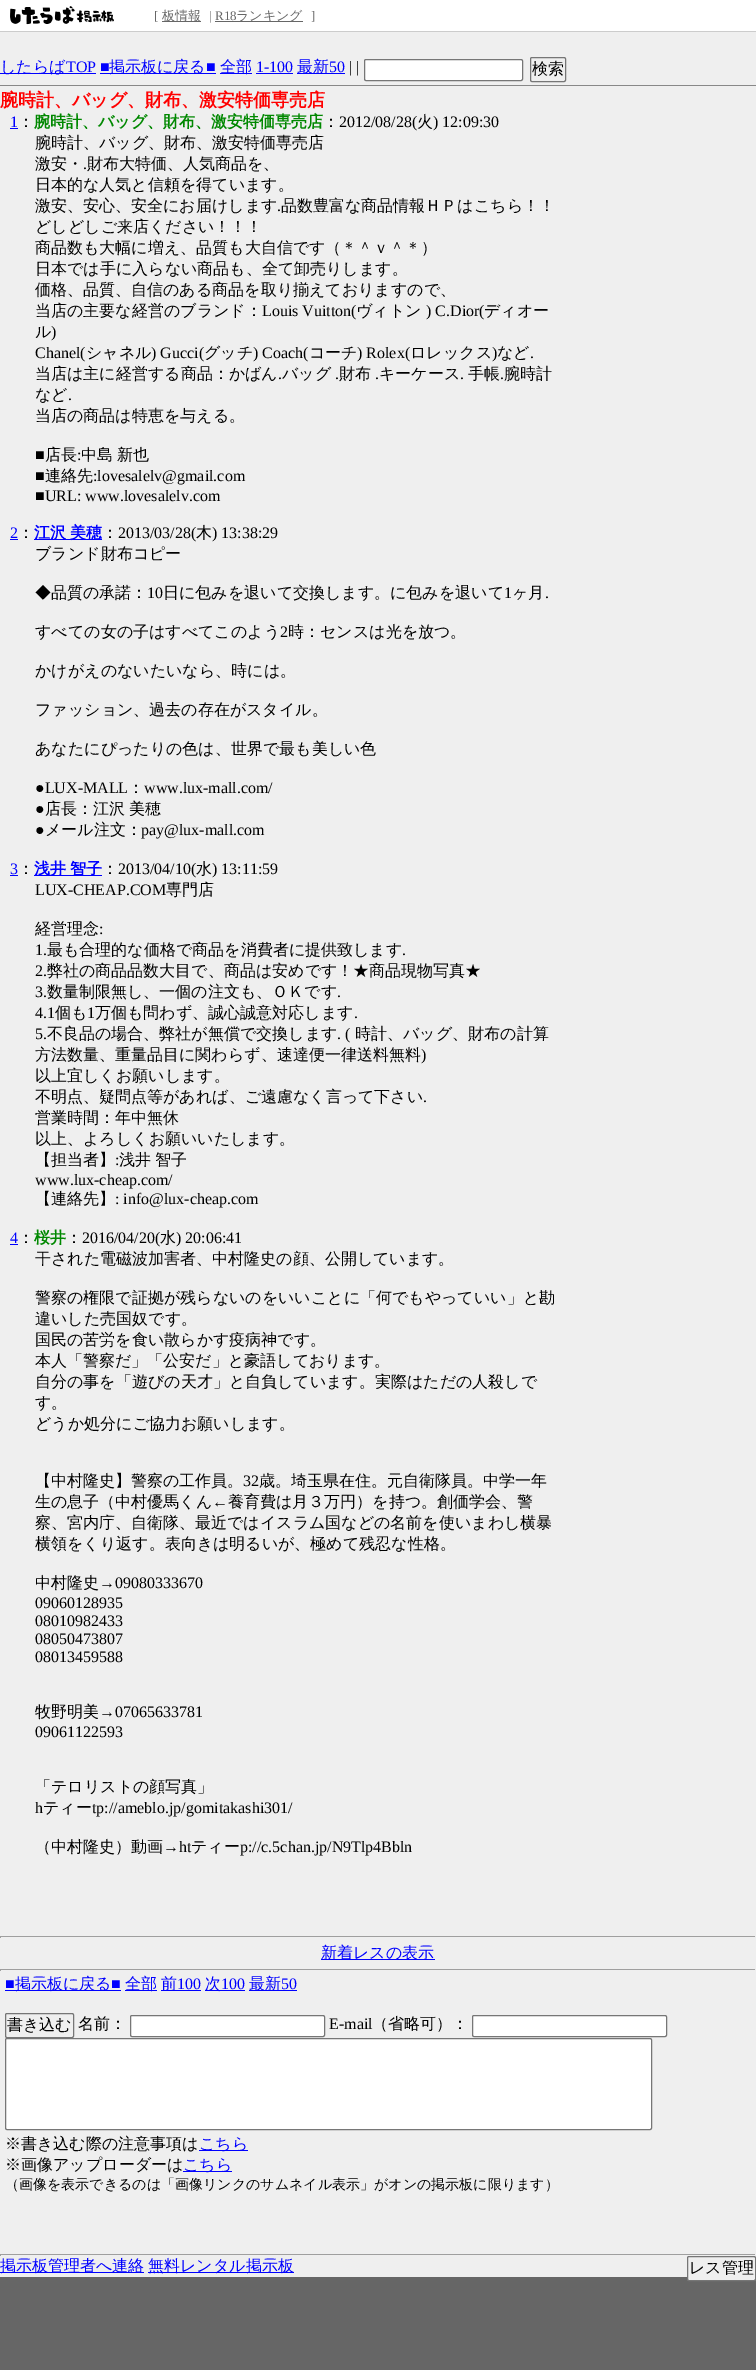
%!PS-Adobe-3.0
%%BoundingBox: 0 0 756 2370
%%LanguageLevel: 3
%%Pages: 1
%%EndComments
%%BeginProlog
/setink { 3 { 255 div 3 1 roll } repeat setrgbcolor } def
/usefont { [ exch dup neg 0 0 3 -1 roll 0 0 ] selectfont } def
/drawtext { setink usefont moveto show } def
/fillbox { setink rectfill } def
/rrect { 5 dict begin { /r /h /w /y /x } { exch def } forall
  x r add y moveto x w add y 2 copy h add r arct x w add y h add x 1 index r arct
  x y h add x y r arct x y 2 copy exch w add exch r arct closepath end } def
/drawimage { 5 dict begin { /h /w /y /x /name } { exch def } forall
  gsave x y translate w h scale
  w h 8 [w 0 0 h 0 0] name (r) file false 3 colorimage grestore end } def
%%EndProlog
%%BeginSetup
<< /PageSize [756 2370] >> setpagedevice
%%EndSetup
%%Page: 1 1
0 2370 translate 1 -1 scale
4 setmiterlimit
0 0 756 2370 102 102 102 fillbox
0 32 756 2245 239 239 239 fillbox
0 0 756 31 255 255 255 fillbox
0 31 756 1 204 204 204 fillbox
(assets/img1.rgb) 10 6 104 19 drawimage
([) 154 20 /LiberationSerif-Regular 13 102 102 102 drawtext
162 21 39 1 102 102 102 fillbox
(板情報) 162 20 /WenQuanYiZenHei-Medium 13 102 102 102 drawtext
(| R18) 209 20 /LiberationSerif-Regular 13 102 102 102 drawtext
215 21 88 1 102 102 102 fillbox
(ランキング) 236 20 /WenQuanYiZenHei-Medium 13 102 102 102 drawtext
(]) 311 20 /LiberationSerif-Regular 13 102 102 102 drawtext
0 85 756 1 136 136 136 fillbox
0 73 96 1 0 0 255 fillbox
(したらば) 0 72 /WenQuanYiZenHei-Medium 16 0 0 255 drawtext
(TOP ■) 66 72 /LiberationSerif-Regular 16 0 0 255 drawtext
100 73 116 1 0 0 255 fillbox
(掲示板に戻る) 109 72 /WenQuanYiZenHei-Medium 16 0 0 255 drawtext
(■) 206 72 /LiberationSerif-Regular 16 0 0 255 drawtext
220 73 32 1 0 0 255 fillbox
(全部) 220 72 /WenQuanYiZenHei-Medium 16 0 0 255 drawtext
(1-100) 256 72 /LiberationSerif-Regular 16 0 0 255 drawtext
256 73 37 1 0 0 255 fillbox
297 73 48 1 0 0 255 fillbox
(最新) 297 72 /WenQuanYiZenHei-Medium 16 0 0 255 drawtext
(50) 329 72 /LiberationSerif-Regular 16 0 0 255 drawtext
(| |) 349 72 /LiberationSerif-Regular 16 0 0 0 drawtext
255 255 255 setink
364.5 59.5 158 21 1.5 rrect gsave fill grestore
118 118 118 setink
stroke
530.5 57.5 35 24 1.5 rrect stroke
(検索) 532 74 /WenQuanYiZenHei-Medium 16 0 0 0 drawtext
(腕時計、バッグ、財布、激安特価専売店) 0 106 /WenQuanYiZenHei-Bold 18 255 0 0 drawtext
(1) 10 127 /LiberationSerif-Regular 16 0 0 255 drawtext
10 128 8 1 0 0 255 fillbox
(：) 18 127 /WenQuanYiZenHei-Medium 16 0 0 0 drawtext
(腕時計、バッグ、財布、激安特価専売店) 34 127 /WenQuanYiZenHei-Bold 16 0 136 0 drawtext
(：) 323 127 /WenQuanYiZenHei-Medium 16 0 0 0 drawtext
(2012/08/28\() 339 127 /LiberationSerif-Regular 16 0 0 0 drawtext
(火) 417 127 /WenQuanYiZenHei-Medium 16 0 0 0 drawtext
(\) 12:09:30) 433 127 /LiberationSerif-Regular 16 0 0 0 drawtext
(腕時計、バッグ、財布、激安特価専売店) 35 148 /WenQuanYiZenHei-Medium 16 0 0 0 drawtext
(激安・) 35 169 /WenQuanYiZenHei-Medium 16 0 0 0 drawtext
(.) 83 169 /LiberationSerif-Regular 16 0 0 0 drawtext
(財布大特価、人気商品を、) 87 169 /WenQuanYiZenHei-Medium 16 0 0 0 drawtext
(日本的な人気と信頼を得ています。) 35 190 /WenQuanYiZenHei-Medium 16 0 0 0 drawtext
(激安、安心、安全にお届けします) 35 211 /WenQuanYiZenHei-Medium 16 0 0 0 drawtext
(.) 277 211 /LiberationSerif-Regular 16 0 0 0 drawtext
(品数豊富な商品情報ＨＰはこちら！！) 281 211 /WenQuanYiZenHei-Medium 16 0 0 0 drawtext
(どしどしご来店ください！！！) 35 232 /WenQuanYiZenHei-Medium 16 0 0 0 drawtext
(商品数も大幅に増え、品質も大自信です（＊＾ｖ＾＊）) 35 253 /WenQuanYiZenHei-Medium 16 0 0 0 drawtext
(日本では手に入らない商品も、全て卸売りします。) 35 274 /WenQuanYiZenHei-Medium 16 0 0 0 drawtext
(価格、品質、自信のある商品を取り揃えておりますので、) 35 295 /WenQuanYiZenHei-Medium 16 0 0 0 drawtext
(当店の主要な経営のブランド：) 35 316 /WenQuanYiZenHei-Medium 16 0 0 0 drawtext
(Louis Vuitton\() 262 316 /LiberationSerif-Regular 16 0 0 0 drawtext
(ヴィトン) 356 316 /WenQuanYiZenHei-Medium 16 0 0 0 drawtext
(\) C.Dior\() 426 316 /LiberationSerif-Regular 16 0 0 0 drawtext
(ディオー) 484 316 /WenQuanYiZenHei-Medium 16 0 0 0 drawtext
(ル) 35 337 /WenQuanYiZenHei-Medium 16 0 0 0 drawtext
(\)) 51 337 /LiberationSerif-Regular 16 0 0 0 drawtext
(Chanel\() 35 358 /LiberationSerif-Regular 16 0 0 0 drawtext
(シャネル) 86 358 /WenQuanYiZenHei-Medium 16 0 0 0 drawtext
(\) Gucci\() 151 358 /LiberationSerif-Regular 16 0 0 0 drawtext
(グッチ) 204 358 /WenQuanYiZenHei-Medium 16 0 0 0 drawtext
(\) Coach\() 253 358 /LiberationSerif-Regular 16 0 0 0 drawtext
(コーチ) 309 358 /WenQuanYiZenHei-Medium 16 0 0 0 drawtext
(\) Rolex\() 357 358 /LiberationSerif-Regular 16 0 0 0 drawtext
(ロレックス) 410 358 /WenQuanYiZenHei-Medium 16 0 0 0 drawtext
(\)) 492 358 /LiberationSerif-Regular 16 0 0 0 drawtext
(など) 497 358 /WenQuanYiZenHei-Medium 16 0 0 0 drawtext
(.) 530 358 /LiberationSerif-Regular 16 0 0 0 drawtext
(当店は主に経営する商品：かばん) 35 379 /WenQuanYiZenHei-Medium 16 0 0 0 drawtext
(.) 278 379 /LiberationSerif-Regular 16 0 0 0 drawtext
(バッグ) 282 379 /WenQuanYiZenHei-Medium 16 0 0 0 drawtext
(.) 335 379 /LiberationSerif-Regular 16 0 0 0 drawtext
(財布) 339 379 /WenQuanYiZenHei-Medium 16 0 0 0 drawtext
(.) 375 379 /LiberationSerif-Regular 16 0 0 0 drawtext
(キーケース) 379 379 /WenQuanYiZenHei-Medium 16 0 0 0 drawtext
(.) 460 379 /LiberationSerif-Regular 16 0 0 0 drawtext
(手帳) 468 379 /WenQuanYiZenHei-Medium 16 0 0 0 drawtext
(.) 500 379 /LiberationSerif-Regular 16 0 0 0 drawtext
(腕時計) 504 379 /WenQuanYiZenHei-Medium 16 0 0 0 drawtext
(など) 35 400 /WenQuanYiZenHei-Medium 16 0 0 0 drawtext
(.) 68 400 /LiberationSerif-Regular 16 0 0 0 drawtext
(当店の商品は特恵を与える。) 35 421 /WenQuanYiZenHei-Medium 16 0 0 0 drawtext
(■) 35 460 /LiberationSerif-Regular 16 0 0 0 drawtext
(店長) 45 460 /WenQuanYiZenHei-Medium 16 0 0 0 drawtext
(:) 77 460 /LiberationSerif-Regular 16 0 0 0 drawtext
/WenQuanYiZenHei-Medium 16 usefont
81 460 moveto -1 0 32 (中島 新也) widthshow
(■) 35 481 /LiberationSerif-Regular 16 0 0 0 drawtext
(連絡先) 45 481 /WenQuanYiZenHei-Medium 16 0 0 0 drawtext
(:lovesalelv@gmail.com) 93 481 /LiberationSerif-Regular 16 0 0 0 drawtext
(■URL: www.lovesalelv.com) 35 501 /LiberationSerif-Regular 16 0 0 0 drawtext
(2) 10 538 /LiberationSerif-Regular 16 0 0 255 drawtext
10 539 8 1 0 0 255 fillbox
(：) 18 538 /WenQuanYiZenHei-Medium 16 0 0 0 drawtext
34 539 68 1 0 0 255 fillbox
/WenQuanYiZenHei-Bold 16 usefont
34 538 moveto -1 0 32 (江沢 美穂) widthshow
(：) 102 538 /WenQuanYiZenHei-Medium 16 0 0 0 drawtext
(2013/03/28\() 118 538 /LiberationSerif-Regular 16 0 0 0 drawtext
(木) 196 538 /WenQuanYiZenHei-Medium 16 0 0 0 drawtext
(\) 13:38:29) 212 538 /LiberationSerif-Regular 16 0 0 0 drawtext
(ブランド財布コピー) 35 559 /WenQuanYiZenHei-Medium 16 0 0 0 drawtext
(◆品質の承諾：) 35 598 /WenQuanYiZenHei-Medium 16 0 0 0 drawtext
(10) 147 598 /LiberationSerif-Regular 16 0 0 0 drawtext
(日に包みを退いて交換します。に包みを退いて) 163 598 /WenQuanYiZenHei-Medium 16 0 0 0 drawtext
(1) 504 598 /LiberationSerif-Regular 16 0 0 0 drawtext
(ヶ月) 512 598 /WenQuanYiZenHei-Medium 16 0 0 0 drawtext
(.) 545 598 /LiberationSerif-Regular 16 0 0 0 drawtext
(すべての女の子はすべてこのよう) 35 637 /WenQuanYiZenHei-Medium 16 0 0 0 drawtext
(2) 280 637 /LiberationSerif-Regular 16 0 0 0 drawtext
(時：センスは光を放つ。) 288 637 /WenQuanYiZenHei-Medium 16 0 0 0 drawtext
(かけがえのないたいなら、時には。) 35 676 /WenQuanYiZenHei-Medium 16 0 0 0 drawtext
(ファッション、過去の存在がスタイル。) 35 715 /WenQuanYiZenHei-Medium 16 0 0 0 drawtext
(あなたにぴったりの色は、世界で最も美しい色) 35 754 /WenQuanYiZenHei-Medium 16 0 0 0 drawtext
(●LUX-MALL) 35 793 /LiberationSerif-Regular 16 0 0 0 drawtext
(：) 128 793 /WenQuanYiZenHei-Medium 16 0 0 0 drawtext
(www.lux-mall.com/) 144 793 /LiberationSerif-Regular 16 0 0 0 drawtext
(●) 35 814 /LiberationSerif-Regular 16 0 0 0 drawtext
/WenQuanYiZenHei-Medium 16 usefont
45 814 moveto -1 0 32 (店長：江沢 美穂) widthshow
(●) 35 835 /LiberationSerif-Regular 16 0 0 0 drawtext
(メール注文：) 45 835 /WenQuanYiZenHei-Medium 16 0 0 0 drawtext
(pay@lux-mall.com) 141 835 /LiberationSerif-Regular 16 0 0 0 drawtext
(3) 10 874 /LiberationSerif-Regular 16 0 0 255 drawtext
10 875 8 1 0 0 255 fillbox
(：) 18 874 /WenQuanYiZenHei-Medium 16 0 0 0 drawtext
34 875 68 1 0 0 255 fillbox
/WenQuanYiZenHei-Bold 16 usefont
34 874 moveto -1 0 32 (浅井 智子) widthshow
(：) 102 874 /WenQuanYiZenHei-Medium 16 0 0 0 drawtext
(2013/04/10\() 118 874 /LiberationSerif-Regular 16 0 0 0 drawtext
(水) 196 874 /WenQuanYiZenHei-Medium 16 0 0 0 drawtext
(\) 13:11:59) 212 874 /LiberationSerif-Regular 16 0 0 0 drawtext
(LUX-CHEAP.COM) 35 895 /LiberationSerif-Regular 16 0 0 0 drawtext
(専門店) 166 895 /WenQuanYiZenHei-Medium 16 0 0 0 drawtext
(経営理念) 35 934 /WenQuanYiZenHei-Medium 16 0 0 0 drawtext
(:) 99 934 /LiberationSerif-Regular 16 0 0 0 drawtext
(1.) 35 955 /LiberationSerif-Regular 16 0 0 0 drawtext
(最も合理的な価格で商品を消費者に提供致します) 47 955 /WenQuanYiZenHei-Medium 16 0 0 0 drawtext
(.) 402 955 /LiberationSerif-Regular 16 0 0 0 drawtext
(2.) 35 976 /LiberationSerif-Regular 16 0 0 0 drawtext
(弊社の商品品数大目で、商品は安めです！★商品現物写真★) 47 976 /WenQuanYiZenHei-Medium 16 0 0 0 drawtext
(3.) 35 997 /LiberationSerif-Regular 16 0 0 0 drawtext
(数量制限無し、一個の注文も、ＯＫです) 47 997 /WenQuanYiZenHei-Medium 16 0 0 0 drawtext
(.) 337 997 /LiberationSerif-Regular 16 0 0 0 drawtext
(4.1) 35 1018 /LiberationSerif-Regular 16 0 0 0 drawtext
(個も) 55 1018 /WenQuanYiZenHei-Medium 16 0 0 0 drawtext
(1) 87 1018 /LiberationSerif-Regular 16 0 0 0 drawtext
(万個も問わず、誠心誠意対応します) 95 1018 /WenQuanYiZenHei-Medium 16 0 0 0 drawtext
(.) 354 1018 /LiberationSerif-Regular 16 0 0 0 drawtext
(5.) 35 1039 /LiberationSerif-Regular 16 0 0 0 drawtext
(不良品の場合、弊社が無償で交換します) 47 1039 /WenQuanYiZenHei-Medium 16 0 0 0 drawtext
(. \() 337 1039 /LiberationSerif-Regular 16 0 0 0 drawtext
(時計、バッグ、財布の計算) 355 1039 /WenQuanYiZenHei-Medium 16 0 0 0 drawtext
(方法数量、重量品目に関わらず、速達便一律送料無料) 35 1060 /WenQuanYiZenHei-Medium 16 0 0 0 drawtext
(\)) 421 1060 /LiberationSerif-Regular 16 0 0 0 drawtext
(以上宜しくお願いします。) 35 1081 /WenQuanYiZenHei-Medium 16 0 0 0 drawtext
(不明点、疑問点等があれば、ご遠慮なく言って下さい) 35 1102 /WenQuanYiZenHei-Medium 16 0 0 0 drawtext
(.) 423 1102 /LiberationSerif-Regular 16 0 0 0 drawtext
(営業時間：年中無休) 35 1123 /WenQuanYiZenHei-Medium 16 0 0 0 drawtext
(以上、よろしくお願いいたします。) 35 1144 /WenQuanYiZenHei-Medium 16 0 0 0 drawtext
(【担当者】) 35 1165 /WenQuanYiZenHei-Medium 16 0 0 0 drawtext
(:) 115 1165 /LiberationSerif-Regular 16 0 0 0 drawtext
/WenQuanYiZenHei-Medium 16 usefont
119 1165 moveto -1 0 32 (浅井 智子) widthshow
(www.lux-cheap.com/) 35 1185 /LiberationSerif-Regular 16 0 0 0 drawtext
(【連絡先】) 35 1204 /WenQuanYiZenHei-Medium 16 0 0 0 drawtext
(: info@lux-cheap.com) 115 1204 /LiberationSerif-Regular 16 0 0 0 drawtext
(4) 10 1243 /LiberationSerif-Regular 16 0 0 255 drawtext
10 1244 8 1 0 0 255 fillbox
(：) 18 1243 /WenQuanYiZenHei-Medium 16 0 0 0 drawtext
(桜井) 34 1243 /WenQuanYiZenHei-Bold 16 0 136 0 drawtext
(：) 66 1243 /WenQuanYiZenHei-Medium 16 0 0 0 drawtext
(2016/04/20\() 82 1243 /LiberationSerif-Regular 16 0 0 0 drawtext
(水) 160 1243 /WenQuanYiZenHei-Medium 16 0 0 0 drawtext
(\) 20:06:41) 176 1243 /LiberationSerif-Regular 16 0 0 0 drawtext
(干された電磁波加害者、中村隆史の顔、公開しています。) 35 1264 /WenQuanYiZenHei-Medium 16 0 0 0 drawtext
(警察の権限で証拠が残らないのをいいことに「何でもやっていい」と勘) 35 1303 /WenQuanYiZenHei-Medium 16 0 0 0 drawtext
(違いした売国奴です。) 35 1324 /WenQuanYiZenHei-Medium 16 0 0 0 drawtext
(国民の苦労を食い散らかす疫病神です。) 35 1345 /WenQuanYiZenHei-Medium 16 0 0 0 drawtext
(本人「警察だ」「公安だ」と豪語しております。) 35 1366 /WenQuanYiZenHei-Medium 16 0 0 0 drawtext
(自分の事を「遊びの天才」と自負しています。実際はただの人殺しで) 35 1387 /WenQuanYiZenHei-Medium 16 0 0 0 drawtext
(す。) 35 1408 /WenQuanYiZenHei-Medium 16 0 0 0 drawtext
(どうか処分にご協力お願いします。) 35 1429 /WenQuanYiZenHei-Medium 16 0 0 0 drawtext
(【中村隆史】警察の工作員。) 35 1486 /WenQuanYiZenHei-Medium 16 0 0 0 drawtext
(32) 243 1486 /LiberationSerif-Regular 16 0 0 0 drawtext
(歳。埼玉県在住。元自衛隊員。中学一年) 259 1486 /WenQuanYiZenHei-Medium 16 0 0 0 drawtext
(生の息子（中村優馬くん) 35 1507 /WenQuanYiZenHei-Medium 16 0 0 0 drawtext
(←) 212 1507 /LiberationSerif-Regular 16 0 0 0 drawtext
(養育費は月３万円）を持つ。創価学会、警) 228 1507 /WenQuanYiZenHei-Medium 16 0 0 0 drawtext
(察、宮内庁、自衛隊、最近ではイスラム国などの名前を使いまわし横暴) 35 1528 /WenQuanYiZenHei-Medium 16 0 0 0 drawtext
(横領をくり返す。表向きは明るいが、極めて残忍な性格。) 35 1549 /WenQuanYiZenHei-Medium 16 0 0 0 drawtext
(中村隆史) 35 1588 /WenQuanYiZenHei-Medium 16 0 0 0 drawtext
(→09080333670) 99 1588 /LiberationSerif-Regular 16 0 0 0 drawtext
(09060128935) 35 1608 /LiberationSerif-Regular 16 0 0 0 drawtext
(08010982433) 35 1626 /LiberationSerif-Regular 16 0 0 0 drawtext
(08050473807) 35 1644 /LiberationSerif-Regular 16 0 0 0 drawtext
(08013459588) 35 1662 /LiberationSerif-Regular 16 0 0 0 drawtext
(牧野明美) 35 1717 /WenQuanYiZenHei-Medium 16 0 0 0 drawtext
(→07065633781) 99 1717 /LiberationSerif-Regular 16 0 0 0 drawtext
(09061122593) 35 1737 /LiberationSerif-Regular 16 0 0 0 drawtext
(「テロリストの顔写真」) 35 1792 /WenQuanYiZenHei-Medium 16 0 0 0 drawtext
(h) 35 1813 /LiberationSerif-Regular 16 0 0 0 drawtext
(ティー) 43 1813 /WenQuanYiZenHei-Medium 16 0 0 0 drawtext
(tp://ameblo.jp/gomitakashi301/) 92 1813 /LiberationSerif-Regular 16 0 0 0 drawtext
(（中村隆史）動画) 35 1852 /WenQuanYiZenHei-Medium 16 0 0 0 drawtext
(→ht) 163 1852 /LiberationSerif-Regular 16 0 0 0 drawtext
(ティー) 191 1852 /WenQuanYiZenHei-Medium 16 0 0 0 drawtext
(p://c.5chan.jp/N9Tlp4Bbln) 240 1852 /LiberationSerif-Regular 16 0 0 0 drawtext
0 1936 756 1 159 159 159 fillbox
755 1936 1 2 238 238 238 fillbox
0 1936 1 2 159 159 159 fillbox
321 1959 114 1 0 0 255 fillbox
(新着レスの表示) 321 1958 /WenQuanYiZenHei-Medium 16 0 0 255 drawtext
0 1969 756 1 159 159 159 fillbox
755 1969 1 2 238 238 238 fillbox
0 1969 1 2 159 159 159 fillbox
(■) 5 1989 /LiberationSerif-Regular 16 0 0 255 drawtext
5 1990 116 1 0 0 255 fillbox
(掲示板に戻る) 15 1989 /WenQuanYiZenHei-Medium 16 0 0 255 drawtext
(■) 111 1989 /LiberationSerif-Regular 16 0 0 255 drawtext
125 1990 32 1 0 0 255 fillbox
(全部) 125 1989 /WenQuanYiZenHei-Medium 16 0 0 255 drawtext
161 1990 40 1 0 0 255 fillbox
(前) 161 1989 /WenQuanYiZenHei-Medium 16 0 0 255 drawtext
(100) 177 1989 /LiberationSerif-Regular 16 0 0 255 drawtext
205 1990 40 1 0 0 255 fillbox
(次) 205 1989 /WenQuanYiZenHei-Medium 16 0 0 255 drawtext
(100) 221 1989 /LiberationSerif-Regular 16 0 0 255 drawtext
249 1990 48 1 0 0 255 fillbox
(最新) 249 1989 /WenQuanYiZenHei-Medium 16 0 0 255 drawtext
(50) 281 1989 /LiberationSerif-Regular 16 0 0 255 drawtext
118 118 118 setink
5.5 2013.5 68 24 1.5 rrect stroke
(書き込む) 7 2030 /WenQuanYiZenHei-Medium 16 0 0 0 drawtext
(名前：) 78 2029 /WenQuanYiZenHei-Medium 16 0 0 0 drawtext
255 255 255 setink
130.5 2015.5 194 21 1.5 rrect gsave fill grestore
118 118 118 setink
stroke
(E-mail) 329 2029 /LiberationSerif-Regular 16 0 0 0 drawtext
(（省略可）：) 372 2029 /WenQuanYiZenHei-Medium 16 0 0 0 drawtext
255 255 255 setink
472.5 2015.5 194 21 1.5 rrect gsave fill grestore
118 118 118 setink
stroke
255 255 255 setink
5.5 2038.5 646 91 1.5 rrect gsave fill grestore
118 118 118 setink
stroke
(※書き込む際の注意事項は) 5 2149 /WenQuanYiZenHei-Medium 16 0 0 0 drawtext
199 2150 49 1 0 0 255 fillbox
(こちら) 199 2149 /WenQuanYiZenHei-Medium 16 0 0 255 drawtext
(※画像アップローダーは) 5 2170 /WenQuanYiZenHei-Medium 16 0 0 0 drawtext
183 2171 49 1 0 0 255 fillbox
(こちら) 183 2170 /WenQuanYiZenHei-Medium 16 0 0 255 drawtext
(（画像を表示できるのは「画像リンクのサムネイル表示」がオンの掲示板に限ります）) 5 2189 /WenQuanYiZenHei-Medium 14 0 0 0 drawtext
0 2254 756 1 159 159 159 fillbox
755 2254 1 2 238 238 238 fillbox
0 2254 1 2 159 159 159 fillbox
0 2272 144 1 0 0 255 fillbox
(掲示板管理者へ連絡) 0 2271 /WenQuanYiZenHei-Medium 16 0 0 255 drawtext
148 2272 146 1 0 0 255 fillbox
(無料レンタル掲示板) 148 2271 /WenQuanYiZenHei-Medium 16 0 0 255 drawtext
239 239 239 setink
687.5 2256.5 68 24 1.5 rrect gsave fill grestore
118 118 118 setink
stroke
(レス管理) 689 2273 /WenQuanYiZenHei-Medium 16 0 0 0 drawtext
showpage
%%EOF
